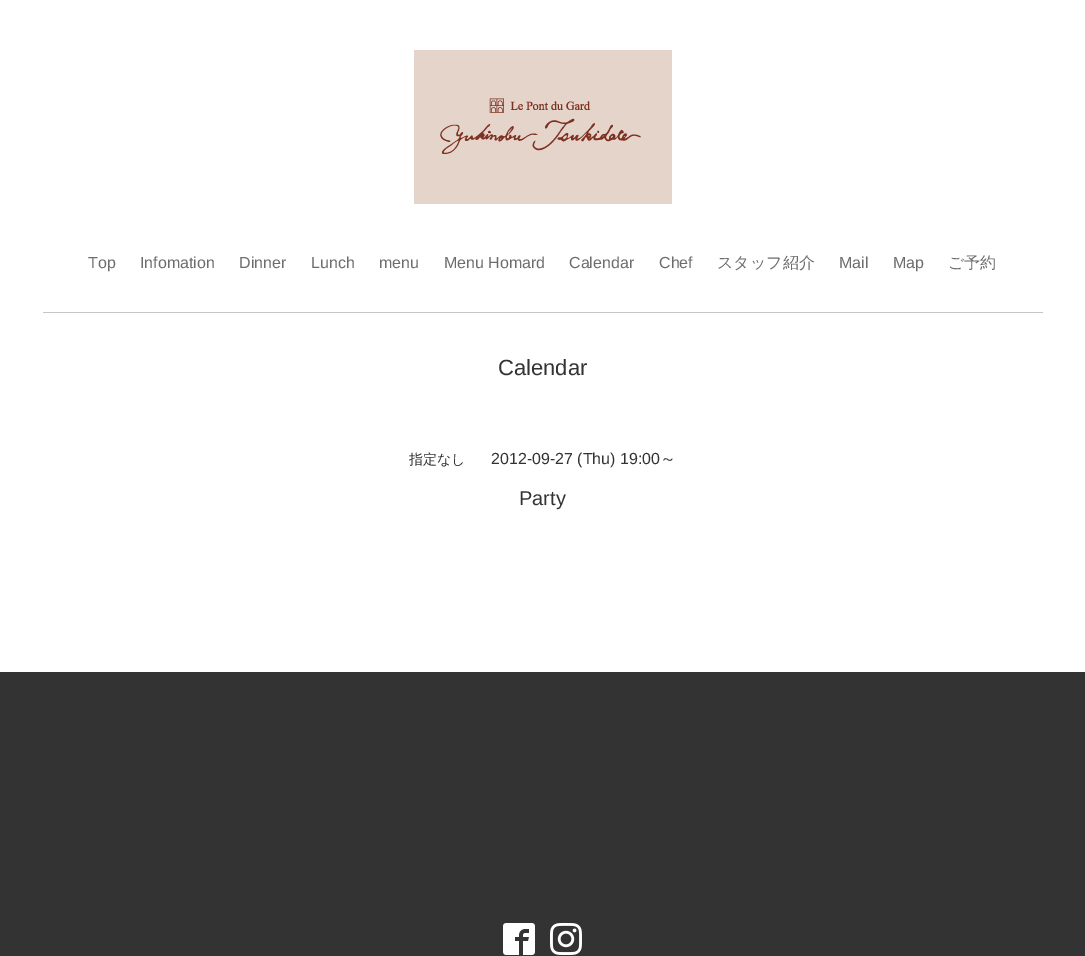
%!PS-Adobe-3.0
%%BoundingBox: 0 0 1085 956
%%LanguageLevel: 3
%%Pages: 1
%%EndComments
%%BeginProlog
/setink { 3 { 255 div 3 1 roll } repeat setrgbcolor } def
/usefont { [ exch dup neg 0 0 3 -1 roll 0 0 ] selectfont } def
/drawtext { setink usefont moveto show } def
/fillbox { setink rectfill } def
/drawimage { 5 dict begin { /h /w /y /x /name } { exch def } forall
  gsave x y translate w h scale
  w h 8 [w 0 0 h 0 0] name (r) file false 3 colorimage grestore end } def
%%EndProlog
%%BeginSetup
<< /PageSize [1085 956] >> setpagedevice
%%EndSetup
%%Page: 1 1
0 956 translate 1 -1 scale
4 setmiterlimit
0 0 1085 956 255 255 255 fillbox
43 312 1000 1 198 198 198 fillbox
(assets/img1.rgb) 414 50 258 154 drawimage
(Top) 88 268 /LiberationSans-Regular 16 109 109 109 drawtext
(Infomation) 140 268 /LiberationSans-Regular 16 109 109 109 drawtext
(Dinner) 239 268 /LiberationSans-Regular 16 109 109 109 drawtext
(Lunch) 311 268 /LiberationSans-Regular 16 109 109 109 drawtext
(menu) 379 268 /LiberationSans-Regular 16 109 109 109 drawtext
(Menu Homard) 444 268 /LiberationSans-Regular 16 109 109 109 drawtext
(Calendar) 569 268 /LiberationSans-Regular 16 109 109 109 drawtext
(Chef) 659 268 /LiberationSans-Regular 16 109 109 109 drawtext
(スタッフ紹介) 717 268 /WenQuanYiZenHei-Medium 16 109 109 109 drawtext
(Mail) 839 268 /LiberationSans-Regular 16 109 109 109 drawtext
(Map) 893 268 /LiberationSans-Regular 16 109 109 109 drawtext
(ご予約) 948 268 /WenQuanYiZenHei-Medium 16 109 109 109 drawtext
(Calendar) 498 375 /LiberationSans-Regular 22 51 51 51 drawtext
(指定なし) 409 464 /WenQuanYiZenHei-Medium 14 51 51 51 drawtext
(2012-09-27 \(Thu\) 19:00) 491 464 /LiberationSans-Regular 16 51 51 51 drawtext
(～) 660 464 /WenQuanYiZenHei-Medium 16 51 51 51 drawtext
(Party) 519 505 /LiberationSans-Regular 20 51 51 51 drawtext
0 672 1085 284 51 51 51 fillbox
(assets/img2.rgb) 503 923 32 32 drawimage
(assets/img3.rgb) 550 923 32 32 drawimage
showpage
%%EOF
